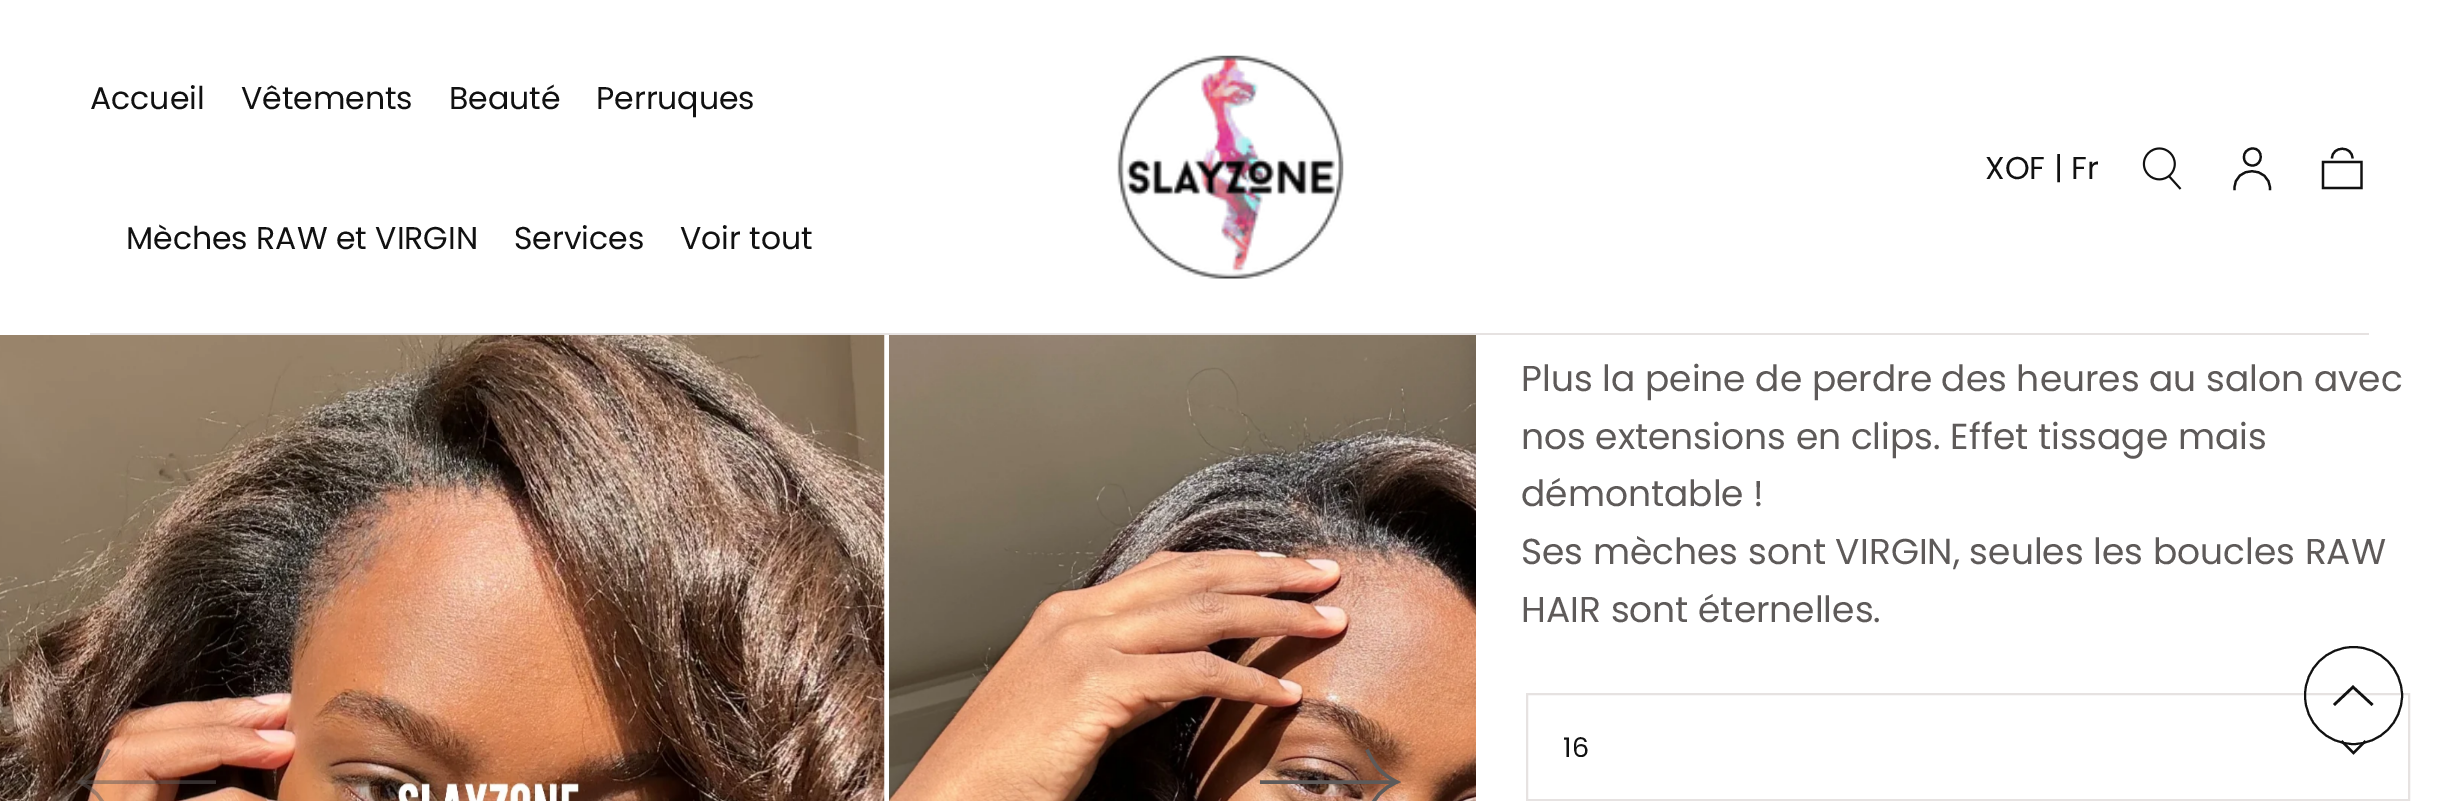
%!PS-Adobe-3.0
%%BoundingBox: 0 0 2459 801
%%LanguageLevel: 3
%%Pages: 1
%%EndComments
%%BeginProlog
/setink { 3 { 255 div 3 1 roll } repeat setrgbcolor } def
/usefont { [ exch dup neg 0 0 3 -1 roll 0 0 ] selectfont } def
/drawtext { setink usefont moveto show } def
/fillbox { setink rectfill } def
/setalpha { dup .setfillconstantalpha .setstrokeconstantalpha } def
/disc { newpath 0 360 arc closepath } def
/drawimage { 5 dict begin { /h /w /y /x /name } { exch def } forall
  gsave x y translate w h scale
  w h 8 [w 0 0 h 0 0] name (r) file false 3 colorimage grestore end } def
%%EndProlog
%%BeginSetup
<< /PageSize [2459 801] /PageUsesTransparency true >> setpagedevice
%%EndSetup
%%Page: 1 1
0 .pushpdf14devicefilter
0 801 translate 1 -1 scale
4 setmiterlimit
0 0 2459 801 255 255 255 fillbox
(Accueil) 90 109 /Poppins-Regular 31.5 17 17 17 drawtext
(Vêtements) 241 109 /Poppins-Regular 31.5 17 17 17 drawtext
(Beauté) 449 109 /Poppins-Regular 31.5 17 17 17 drawtext
(Perruques) 596 109 /Poppins-Regular 31.5 17 17 17 drawtext
(Mèches RAW et VIRGIN) 126 249 /Poppins-Regular 31.5 17 17 17 drawtext
(Services) 514 249 /Poppins-Regular 31.5 17 17 17 drawtext
(Voir tout) 680 249 /Poppins-Regular 31.5 17 17 17 drawtext
(assets/img1.rgb) 1117 55 227 224 drawimage
(XOF | Fr) 1985 179 /Poppins-Regular 31.5 17 17 17 drawtext
(assets/img2.rgb) 2142 147 40 43 drawimage
2.2 setlinewidth
2 setlinecap
2234.5 189 moveto 2234 165 2270 165.5 2270 189 curveto 2252.5 165.5 moveto 2263.5 165.5 2263.5 148 2252.5 148.5 curveto 2241 149 2241 165.5 2252.5 165.5 curveto closepath stroke
0 setlinecap
2361.5 188 moveto 2323 188 lineto 2323 162 lineto 2361.5 162 lineto closepath 2352.5 158.5 moveto 2352.5 145.5 2332 145.5 2332 158.5 curveto stroke
90 333 2279 2 230 226 225 fillbox
(assets/img3.rgb) 0 335 885 466 drawimage
(assets/img4.rgb) 889 335 587 466 drawimage
0.5 setalpha
94 90 89 setink
3.4 setlinewidth
216 782 moveto 80.5 782 lineto stroke
109 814 moveto 101 796.5 94.5 789 79 782 curveto 95 774 101 766.5 109 749.5 curveto stroke
1 setalpha
1260 782 moveto 1395.5 782 lineto stroke
1367 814 moveto 1375 796.5 1381.5 789 1397 782 curveto 1381 774 1375 766.5 1367 749.5 curveto stroke
(Plus la peine de perdre des heures au salon avec) 1521 391 /Poppins-Regular 36 94 90 89 drawtext
(nos extensions en clips. Effet tissage mais) 1521 449 /Poppins-Regular 36 94 90 89 drawtext
(démontable !) 1521 506 /Poppins-Regular 36 94 90 89 drawtext
(Ses mèches sont VIRGIN, seules les boucles RAW) 1521 564 /Poppins-Regular 36 94 90 89 drawtext
(HAIR sont éternelles.) 1521 622 /Poppins-Regular 36 94 90 89 drawtext
230 226 225 setink
2 setlinewidth
1527 694 882 106 rectstroke
(16) 1563 757 /Poppins-Regular 27 17 17 17 drawtext
2.2 setlinewidth
2365.5 741 moveto 2353.5 753 lineto 2341.5 741 lineto stroke
2 setlinewidth
2353.5 695.5 48.5 disc stroke
2.6 setlinewidth
2 setlinecap
2335 704 moveto 2353 687 lineto 2371.5 704 lineto stroke
.poppdf14devicefilter showpage
%%EOF
